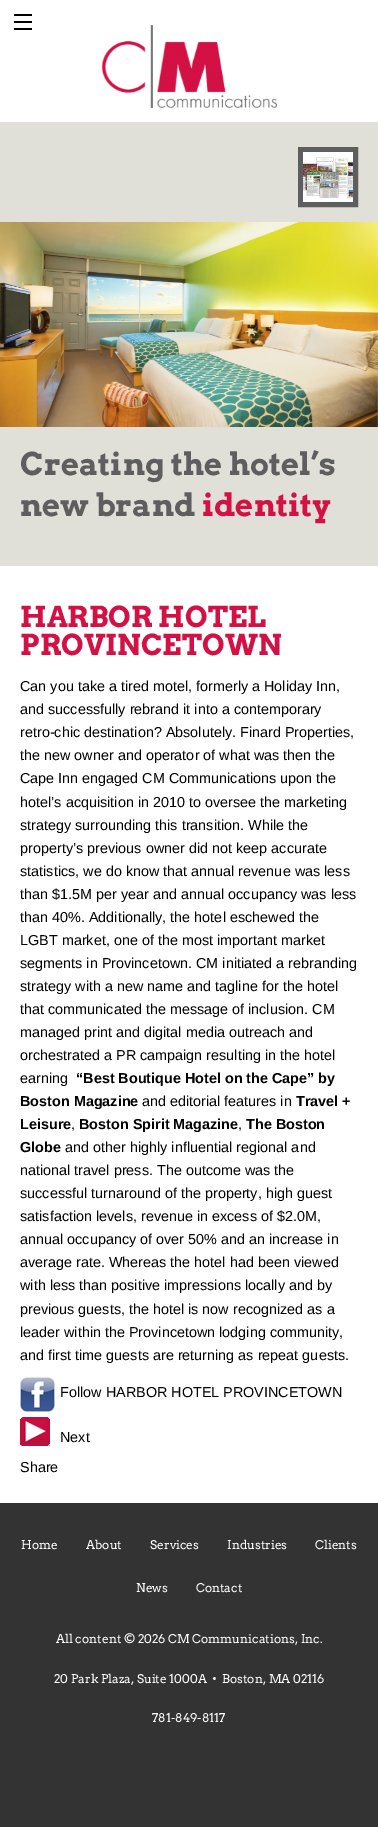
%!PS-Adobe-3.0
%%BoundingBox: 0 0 378 1827
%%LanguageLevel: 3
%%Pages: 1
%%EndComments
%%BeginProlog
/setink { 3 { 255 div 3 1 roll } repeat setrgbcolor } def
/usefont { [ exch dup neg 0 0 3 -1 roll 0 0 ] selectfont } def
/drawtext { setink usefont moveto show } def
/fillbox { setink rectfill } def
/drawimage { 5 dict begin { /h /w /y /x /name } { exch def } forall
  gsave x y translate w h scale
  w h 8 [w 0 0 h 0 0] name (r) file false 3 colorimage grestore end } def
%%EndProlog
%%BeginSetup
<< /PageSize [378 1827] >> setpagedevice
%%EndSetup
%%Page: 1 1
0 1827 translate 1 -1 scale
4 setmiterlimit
0 0 378 1827 51 51 51 fillbox
0 0 378 1503 255 255 255 fillbox
14 28 18 2 0 0 0 fillbox
14 21 18 2 0 0 0 fillbox
14 14 18 2 0 0 0 fillbox
(assets/img1.rgb) 101 25 176 83 drawimage
0 122 378 444 224 224 216 fillbox
94 94 94 setink
5 setlinewidth
300.5 149.5 55 55 rectstroke
(assets/img2.rgb) 303 152 50 50 drawimage
(assets/img3.rgb) 0 222 378 205 drawimage
(Creating the hotel’s) 20 475 /Arvo-Bold 31.25 94 94 94 drawtext
(new brand) 20 516 /Arvo-Bold 31.25 94 94 94 drawtext
(identity) 202 516 /Arvo-Bold 31.25 211 17 69 drawtext
(HARBOR HOTEL) 20 627 /Arvo-Bold 28.75 211 17 69 drawtext
(PROVINCETOWN) 20 655 /Arvo-Bold 28.75 211 17 69 drawtext
(Can you take a tired motel, formerly a Holiday Inn,) 20 691 /LiberationSans-Regular 14.4 0 0 0 drawtext
(and successfully rebrand it into a contemporary) 20 714 /LiberationSans-Regular 14.4 0 0 0 drawtext
(retro-chic destination? Absolutely. Finard Properties,) 20 737 /LiberationSans-Regular 14.4 0 0 0 drawtext
(the new owner and operator of what was then the) 20 760 /LiberationSans-Regular 14.4 0 0 0 drawtext
(Cape Inn engaged CM Communications upon the) 20 783 /LiberationSans-Regular 14.4 0 0 0 drawtext
(hotel’s acquisition in 2010 to oversee the marketing) 20 807 /LiberationSans-Regular 14.4 0 0 0 drawtext
(strategy surrounding this transition. While the) 20 830 /LiberationSans-Regular 14.4 0 0 0 drawtext
(property’s previous owner did not keep accurate) 20 853 /LiberationSans-Regular 14.4 0 0 0 drawtext
(statistics, we do know that annual revenue was less) 20 876 /LiberationSans-Regular 14.4 0 0 0 drawtext
(than $1.5M per year and annual occupancy was less) 20 899 /LiberationSans-Regular 14.4 0 0 0 drawtext
(than 40%. Additionally, the hotel eschewed the) 20 922 /LiberationSans-Regular 14.4 0 0 0 drawtext
(LGBT market, one of the most important market) 20 945 /LiberationSans-Regular 14.4 0 0 0 drawtext
(segments in Provincetown. CM initiated a rebranding) 20 968 /LiberationSans-Regular 14.4 0 0 0 drawtext
(strategy with a new name and tagline for the hotel) 20 991 /LiberationSans-Regular 14.4 0 0 0 drawtext
(that communicated the message of inclusion. CM) 20 1014 /LiberationSans-Regular 14.4 0 0 0 drawtext
(managed print and digital media outreach and) 20 1037 /LiberationSans-Regular 14.4 0 0 0 drawtext
(orchestrated a PR campaign resulting in the hotel) 20 1060 /LiberationSans-Regular 14.4 0 0 0 drawtext
(earning) 20 1083 /LiberationSans-Regular 14.4 0 0 0 drawtext
(“Best Boutique Hotel on the Cape” by) 76 1083 /LiberationSans-Bold 14.4 0 0 0 drawtext
(Boston Magazine) 20 1106 /LiberationSans-Bold 14.4 0 0 0 drawtext
(and editorial features in) 142 1106 /LiberationSans-Regular 14.4 0 0 0 drawtext
(Travel +) 296 1106 /LiberationSans-Bold 14.4 0 0 0 drawtext
(Leisure) 20 1129 /LiberationSans-Bold 14.4 0 0 0 drawtext
(,) 71 1129 /LiberationSans-Regular 14.4 0 0 0 drawtext
(Boston Spirit Magazine) 79 1129 /LiberationSans-Bold 14.4 0 0 0 drawtext
(,) 238 1129 /LiberationSans-Regular 14.4 0 0 0 drawtext
(The Boston) 246 1129 /LiberationSans-Bold 14.4 0 0 0 drawtext
(Globe) 20 1152 /LiberationSans-Bold 14.4 0 0 0 drawtext
(and other highly influential regional and) 65 1152 /LiberationSans-Regular 14.4 0 0 0 drawtext
(national travel press. The outcome was the) 20 1175 /LiberationSans-Regular 14.4 0 0 0 drawtext
(successful turnaround of the property, high guest) 20 1198 /LiberationSans-Regular 14.4 0 0 0 drawtext
(satisfaction levels, revenue in excess of $2.0M,) 20 1221 /LiberationSans-Regular 14.4 0 0 0 drawtext
(annual occupancy of over 50% and an increase in) 20 1244 /LiberationSans-Regular 14.4 0 0 0 drawtext
(average rate. Whereas the hotel had been viewed) 20 1267 /LiberationSans-Regular 14.4 0 0 0 drawtext
(with less than positive impressions locally and by) 20 1290 /LiberationSans-Regular 14.4 0 0 0 drawtext
(previous guests, the hotel is now recognized as a) 20 1314 /LiberationSans-Regular 14.4 0 0 0 drawtext
(leader within the Provincetown lodging community,) 20 1337 /LiberationSans-Regular 14.4 0 0 0 drawtext
(and first time guests are returning as repeat guests.) 20 1360 /LiberationSans-Regular 14.4 0 0 0 drawtext
(assets/img4.rgb) 20 1377 35 35 drawimage
(Follow HARBOR HOTEL PROVINCETOWN) 60 1397 /LiberationSans-Regular 14.4 0 0 0 drawtext
(assets/img5.rgb) 20 1417 30 29 drawimage
(Next) 60 1442 /LiberationSans-Regular 14.4 0 0 0 drawtext
(Share) 20 1472 /LiberationSans-Regular 14.4 0 0 0 drawtext
(Home) 21 1549 /Arvo-Regular 12 255 255 255 drawtext
(About) 86 1549 /Arvo-Regular 12 255 255 255 drawtext
(Services) 150 1549 /Arvo-Regular 12 255 255 255 drawtext
(Industries) 227 1549 /Arvo-Regular 12 255 255 255 drawtext
(Clients) 315 1549 /Arvo-Regular 12 255 255 255 drawtext
(News) 136 1592 /Arvo-Regular 12 255 255 255 drawtext
(Contact) 196 1592 /Arvo-Regular 12 255 255 255 drawtext
(All content © 2026 CM Communications, Inc.) 56 1643 /Arvo-Regular 12 255 255 255 drawtext
(20 Park Plaza, Suite 1000A  •  Boston, MA 02116) 54 1683 /Arvo-Regular 12 255 255 255 drawtext
(781-849-8117) 152 1722 /Arvo-Regular 12 255 255 255 drawtext
showpage
%%EOF
